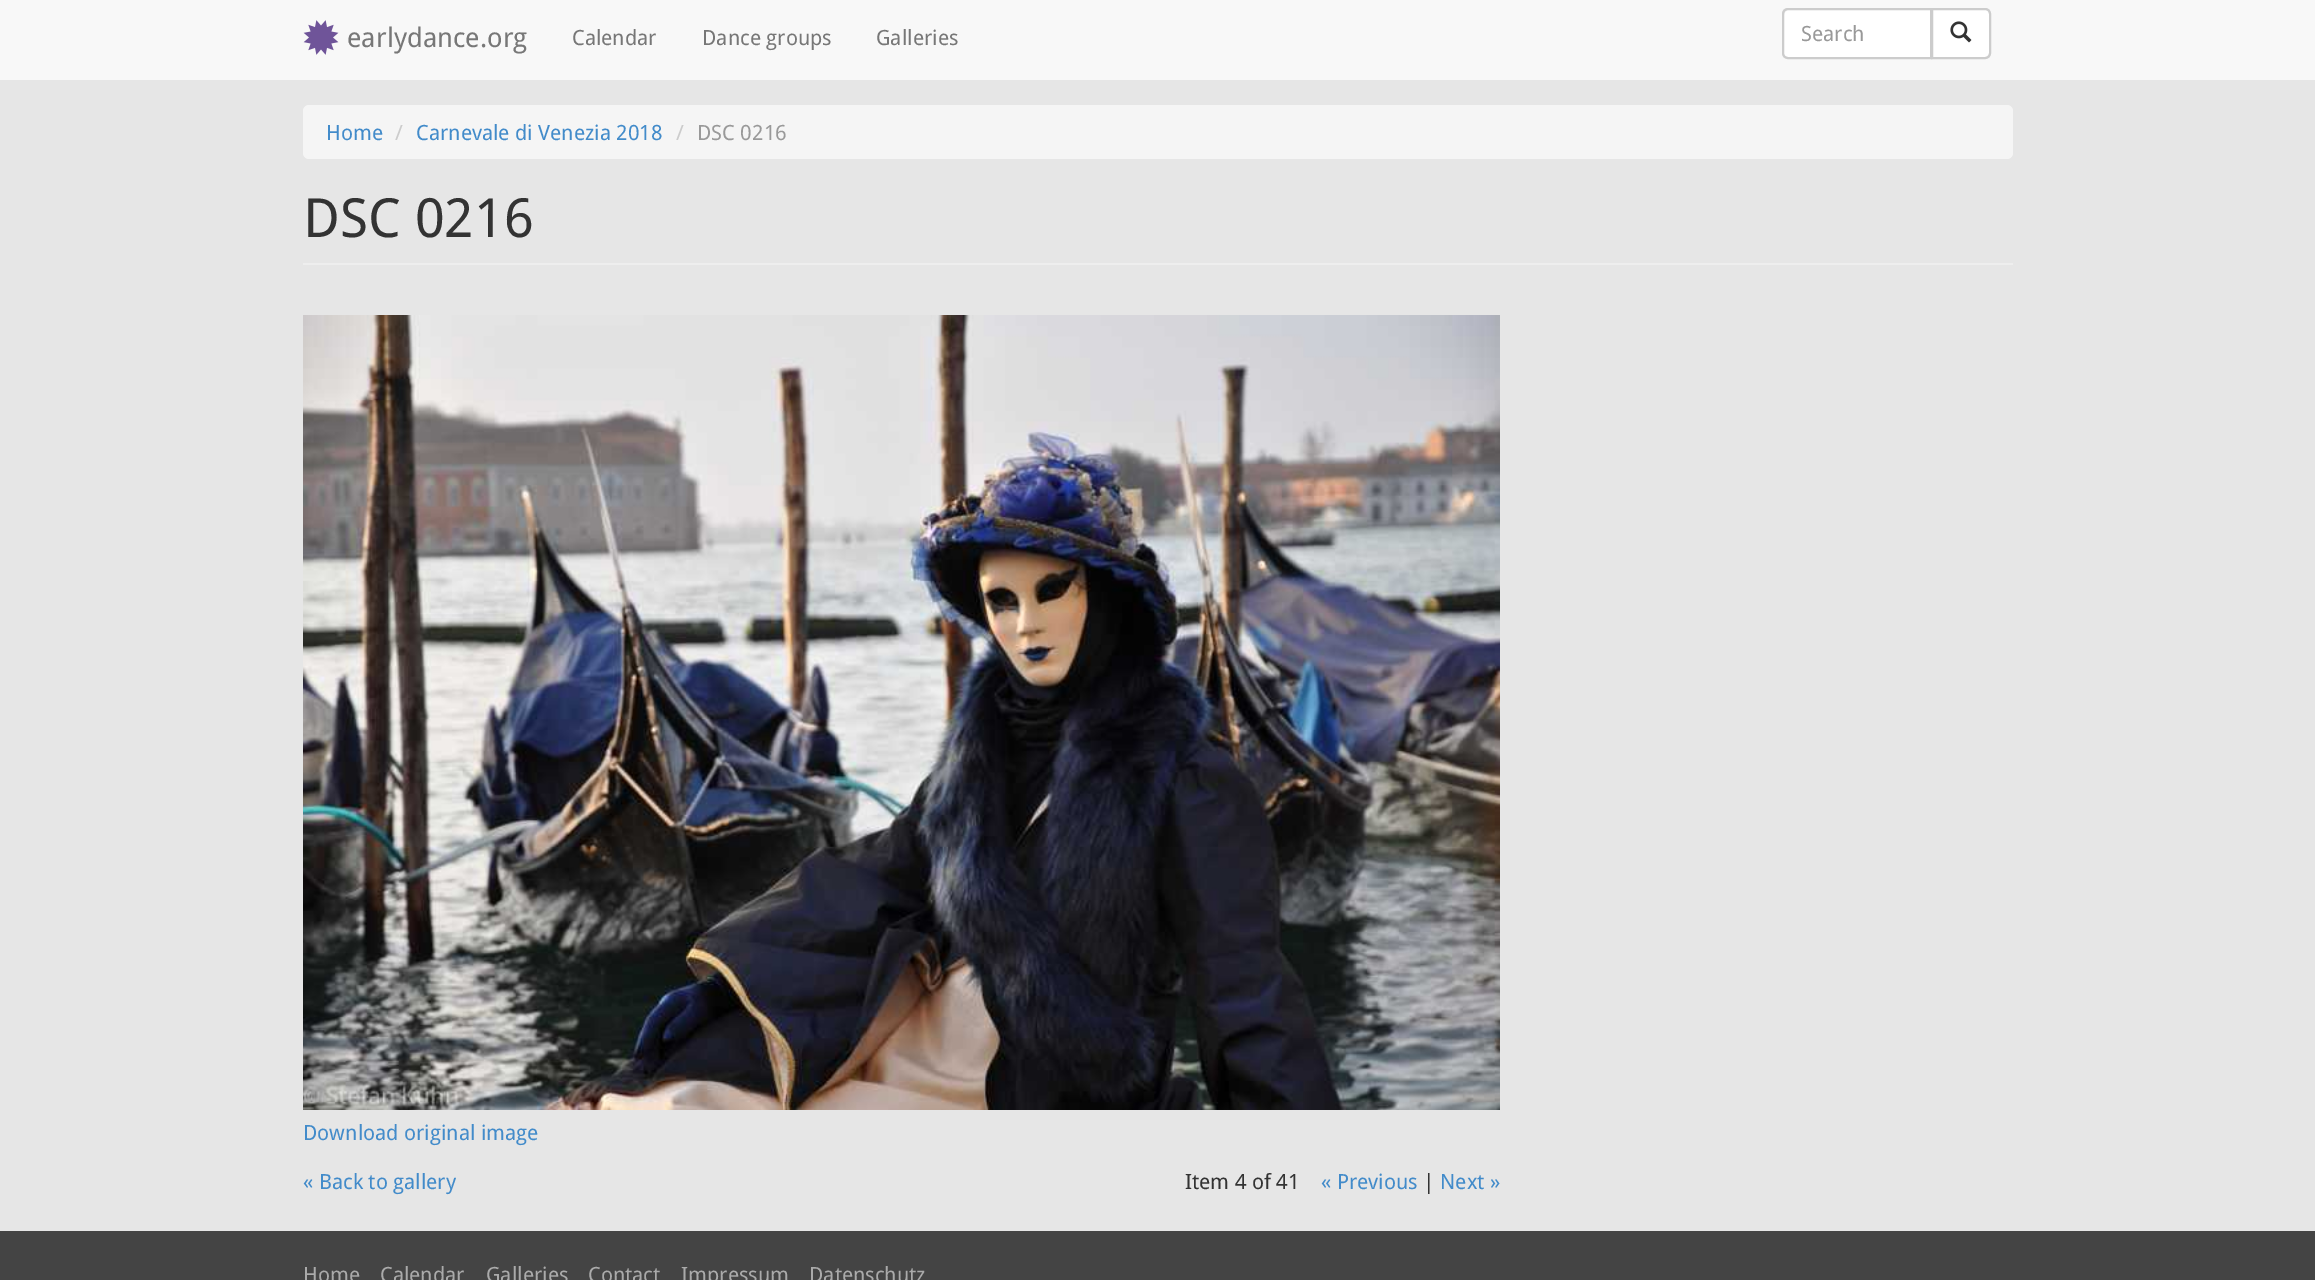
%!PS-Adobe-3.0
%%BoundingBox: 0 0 2315 1280
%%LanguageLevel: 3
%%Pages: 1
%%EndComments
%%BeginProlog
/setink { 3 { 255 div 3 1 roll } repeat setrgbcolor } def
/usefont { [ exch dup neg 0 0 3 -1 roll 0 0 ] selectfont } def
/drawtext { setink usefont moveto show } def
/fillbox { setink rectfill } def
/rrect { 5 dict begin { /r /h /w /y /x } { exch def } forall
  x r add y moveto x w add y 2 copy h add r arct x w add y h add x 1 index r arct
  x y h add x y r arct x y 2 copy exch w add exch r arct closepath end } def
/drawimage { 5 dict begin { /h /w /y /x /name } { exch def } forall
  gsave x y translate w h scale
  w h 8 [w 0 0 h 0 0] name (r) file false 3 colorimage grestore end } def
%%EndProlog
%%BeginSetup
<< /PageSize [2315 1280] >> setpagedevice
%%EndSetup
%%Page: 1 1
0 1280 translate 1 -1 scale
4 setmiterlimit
0 0 2315 1280 230 230 230 fillbox
0 0 2315 80 248 248 248 fillbox
(assets/img1.rgb) 303 20 36 35 drawimage
(earlydance.org) 347 47 /DroidSans-Regular 27 119 119 119 drawtext
(Calendar) 572 45 /DroidSans-Regular 21 119 119 119 drawtext
(Dance groups) 702 45 /DroidSans-Regular 21 119 119 119 drawtext
(Galleries) 876 45 /DroidSans-Regular 21 119 119 119 drawtext
255 255 255 setink
1932 9 moveto 1985 9 lineto 1988 9 1990 11 1990 14 curveto 1990 53 lineto 1990 56 1988 58 1985 58 curveto 1932 58 lineto closepath gsave fill grestore
204 204 204 setink
2 setlinewidth
stroke
255 255 255 setink
1788 8 moveto 1932 8 lineto 1932 59 lineto 1788 59 lineto 1784.5 59 1782 56.5 1782 53 curveto 1782 14 lineto 1782 10.5 1784.5 8 1788 8 curveto closepath fill
236 236 236 setink
1788 10 moveto 1930 10 lineto 1930 57 lineto 1931 57 lineto 1931 9 lineto 1789 9 lineto 1786 9 1784 11 1784 14 curveto 1784 15 lineto 1784 13 1786 10 1788 10 curveto closepath fill
204 204 204 setink
1788 9 moveto 1931 9 lineto 1931 58 lineto 1788 58 lineto 1785 58 1783 56 1783 53 curveto 1783 14 lineto 1783 11 1785 9 1788 9 curveto closepath stroke
(Search) 1801 41 /DroidSans-Regular 21 153 153 153 drawtext
(assets/img2.rgb) 1950 21 22 22 drawimage
245 245 245 setink
303 105 1710 54 6 rrect fill
(Home) 326 140 /DroidSans-Regular 21 66 139 202 drawtext
(/) 395 140 /DroidSans-Regular 21 204 204 204 drawtext
(Carnevale di Venezia 2018) 416 140 /DroidSans-Regular 21 66 139 202 drawtext
(/) 676 140 /DroidSans-Regular 21 204 204 204 drawtext
(DSC 0216) 697 140 /DroidSans-Regular 21 153 153 153 drawtext
303 263 1710 2 238 238 238 fillbox
(DSC 0216) 303 237 /DroidSans-Regular 54 51 51 51 drawtext
(assets/img3.rgb) 303 315 1197 795 drawimage
(Download original image) 303 1140 /DroidSans-Regular 21 66 139 202 drawtext
(« Back to gallery) 303 1189 /DroidSans-Regular 21 66 139 202 drawtext
(Item 4 of 41) 1185 1189 /DroidSans-Regular 21 51 51 51 drawtext
(« Previous) 1321 1189 /DroidSans-Regular 21 66 139 202 drawtext
(|) 1423 1189 /DroidSans-Regular 21 51 51 51 drawtext
(Next ») 1440 1189 /DroidSans-Regular 21 66 139 202 drawtext
0 1231 2315 49 68 68 68 fillbox
(Home) 303 1282 /DroidSans-Regular 21 170 170 170 drawtext
(Calendar) 380 1282 /DroidSans-Regular 21 170 170 170 drawtext
(Galleries) 486 1282 /DroidSans-Regular 21 170 170 170 drawtext
(Contact) 588 1282 /DroidSans-Regular 21 170 170 170 drawtext
(Impressum) 681 1282 /DroidSans-Regular 21 170 170 170 drawtext
(Datenschutz) 809 1282 /DroidSans-Regular 21 170 170 170 drawtext
showpage
%%EOF
